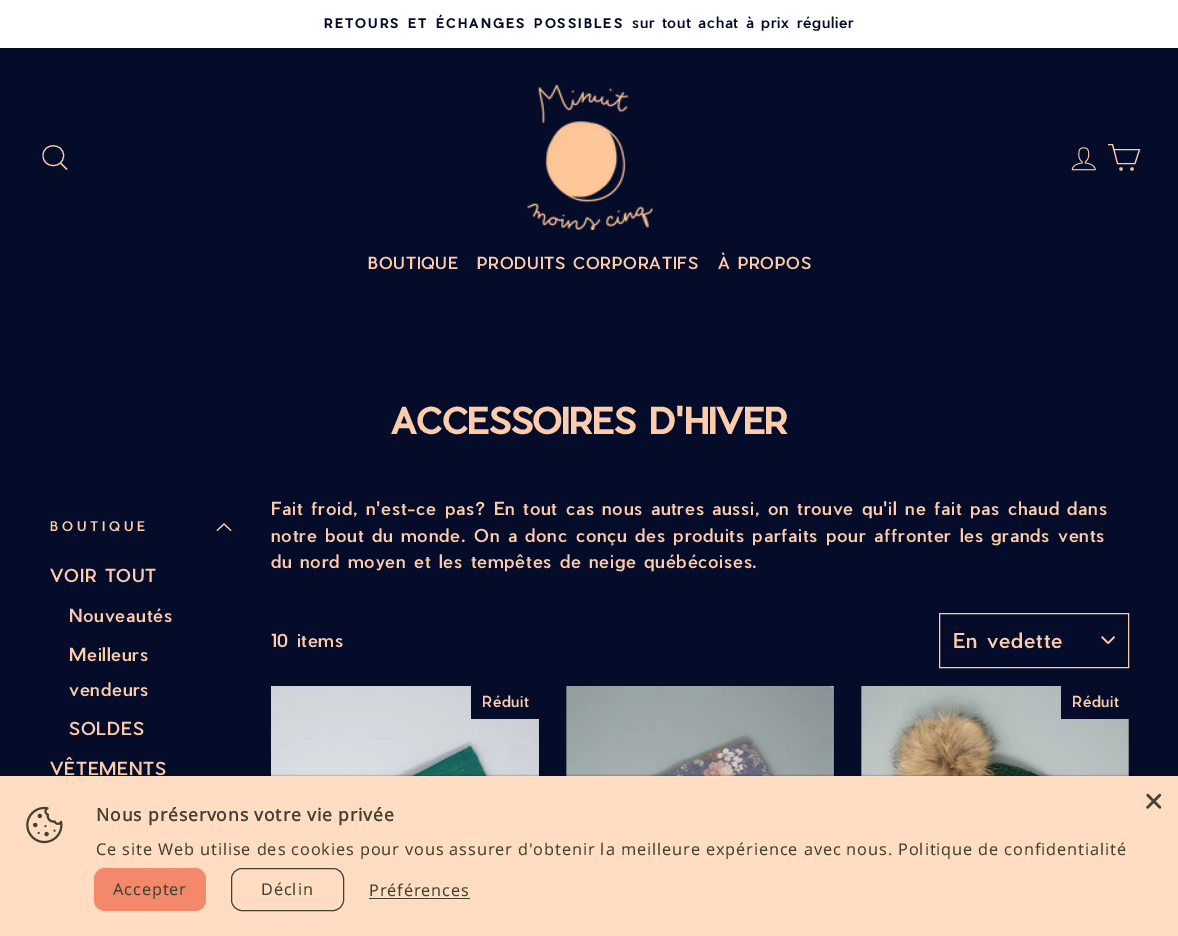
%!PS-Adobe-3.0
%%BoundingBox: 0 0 1178 936
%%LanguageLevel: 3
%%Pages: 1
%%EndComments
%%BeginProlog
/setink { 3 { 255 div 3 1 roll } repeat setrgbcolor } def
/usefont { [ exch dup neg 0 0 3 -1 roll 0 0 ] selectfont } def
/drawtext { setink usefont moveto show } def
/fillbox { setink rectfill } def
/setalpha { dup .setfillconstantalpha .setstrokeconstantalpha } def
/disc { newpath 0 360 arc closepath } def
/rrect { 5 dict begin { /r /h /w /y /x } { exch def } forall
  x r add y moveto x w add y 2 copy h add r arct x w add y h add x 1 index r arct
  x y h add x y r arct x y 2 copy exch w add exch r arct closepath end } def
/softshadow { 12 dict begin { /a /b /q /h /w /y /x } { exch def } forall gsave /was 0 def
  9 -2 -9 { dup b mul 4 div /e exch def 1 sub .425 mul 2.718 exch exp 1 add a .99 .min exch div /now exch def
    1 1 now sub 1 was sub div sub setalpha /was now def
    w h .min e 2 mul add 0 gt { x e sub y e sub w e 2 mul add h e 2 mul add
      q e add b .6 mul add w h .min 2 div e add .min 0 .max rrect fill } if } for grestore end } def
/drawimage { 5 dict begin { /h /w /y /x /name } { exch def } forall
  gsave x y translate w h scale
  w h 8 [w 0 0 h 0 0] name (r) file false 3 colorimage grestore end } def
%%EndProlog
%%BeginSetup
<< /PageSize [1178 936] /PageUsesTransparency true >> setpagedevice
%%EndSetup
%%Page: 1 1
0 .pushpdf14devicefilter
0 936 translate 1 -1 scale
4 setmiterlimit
0 0 1178 936 5 12 42 fillbox
0 0 1178 48 255 255 255 fillbox
/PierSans-Bold 12.6 usefont
5 12 42 setink
324 28 moveto 2.5 0 (RETOURS ET ÉCHANGES POSSIBLES) ashow
/PierSans-Medium 14.9 usefont
632 28 moveto 0.88 0 (sur tout achat à prix régulier) ashow
252 204 171 setink
1.1 setlinewidth
63.5 155.5 moveto 63.5 169 43 169 43 155.5 curveto 43 142.5 63.5 142.5 63.5 155.5 curveto closepath 67 169.5 moveto 60.5 163 lineto stroke
(assets/img1.rgb) 527 85 126 145 drawimage
(assets/img2.rgb) 1071 147 25 24 drawimage
1114 149.5 moveto 1139.5 149.5 lineto 1135 163.5 lineto 1117.5 163.5 lineto 1112.5 144.5 lineto 1108 144.5 lineto stroke
1121 169 1.1 disc stroke
1132 169 1.1 disc stroke
/PierSans-Medium 16.25 usefont
368 269 moveto 0.88 0 (BOUTIQUE) ashow
477 269 moveto 0.88 0 (PRODUITS CORPORATIFS) ashow
718 269 moveto 0.88 0 (À PROPOS) ashow
(ACCESSOIRES D'HIVER) 391 434 /PierSans-Bold 35 252 204 171 drawtext
/PierSans-Medium 13 usefont
50 531 moveto 4 0 (BOUTIQUE) ashow
217 530.5 moveto 224 524 lineto 231 530.5 lineto stroke
/PierSans-Medium 17.5 usefont
50 582 moveto 0.88 0 (VOIR TOUT) ashow
69 622 moveto 0.88 0 (Nouveautés) ashow
69 661 moveto 0.88 0 (Meilleurs) ashow
69 696 moveto 0.88 0 (vendeurs) ashow
69 735 moveto 0.88 0 (SOLDES) ashow
50 775 moveto 0.88 0 (VÊTEMENTS) ashow
271 515 moveto 0.88 0 (Fait froid, n'est-ce pas? En tout cas nous autres aussi, on trouve qu'il ne fait pas chaud dans) ashow
271 542 moveto 0.88 0 (notre bout du monde. On a donc conçu des produits parfaits pour affronter les grands vents) ashow
271 568 moveto 0.88 0 (du nord moyen et les tempêtes de neige québécoises.) ashow
271 647 moveto 0.88 0 (10 items) ashow
(assets/img3.rgb) 1101 636 14 8 drawimage
1 setlinewidth
939.5 613.5 189 54 rectstroke
/PierSans-Medium 20 usefont
953 648 moveto 1 0 (En vedette) ashow
(assets/img4.rgb) 271 686 268 90 drawimage
471 686 68 33 5 12 42 fillbox
/PierSans-Medium 14.9 usefont
252 204 171 setink
482 707 moveto 0.88 0 (Réduit) ashow
(assets/img5.rgb) 566 686 268 90 drawimage
(assets/img6.rgb) 861 686 268 90 drawimage
1061 686 68 33 5 12 42 fillbox
252 204 171 setink
1072 707 moveto 0.88 0 (Réduit) ashow
0 0 0 setink
0 776 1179 160 0 1 0.5 softshadow
0 776 1178 160 255 220 194 fillbox
(assets/img7.rgb) 1146 793 16 16 drawimage
(assets/img8.rgb) 26 806 37 38 drawimage
/NotoSans-Bold 17.5 usefont
63 67 48 setink
96 821 moveto 0.88 0 (Nous préservons votre vie privée) ashow
/NotoSans-Regular 16.25 usefont
96 855 moveto 0.88 0 (Ce site Web utilise des cookies pour vous assurer d'obtenir la meilleure expérience avec nous. Politique de confidentialité) ashow
243 136 106 setink
94 868 112 43 11 rrect fill
63 67 48 setink
113 895 moveto 0.88 0 (Accepter) ashow
231.5 868.5 112 42 10.5 rrect stroke
261 895 moveto 0.88 0 (Déclin) ashow
369 896 moveto 0.88 0 (Préférences) ashow
369 898 101 1 63 67 48 fillbox
.poppdf14devicefilter showpage
%%EOF
